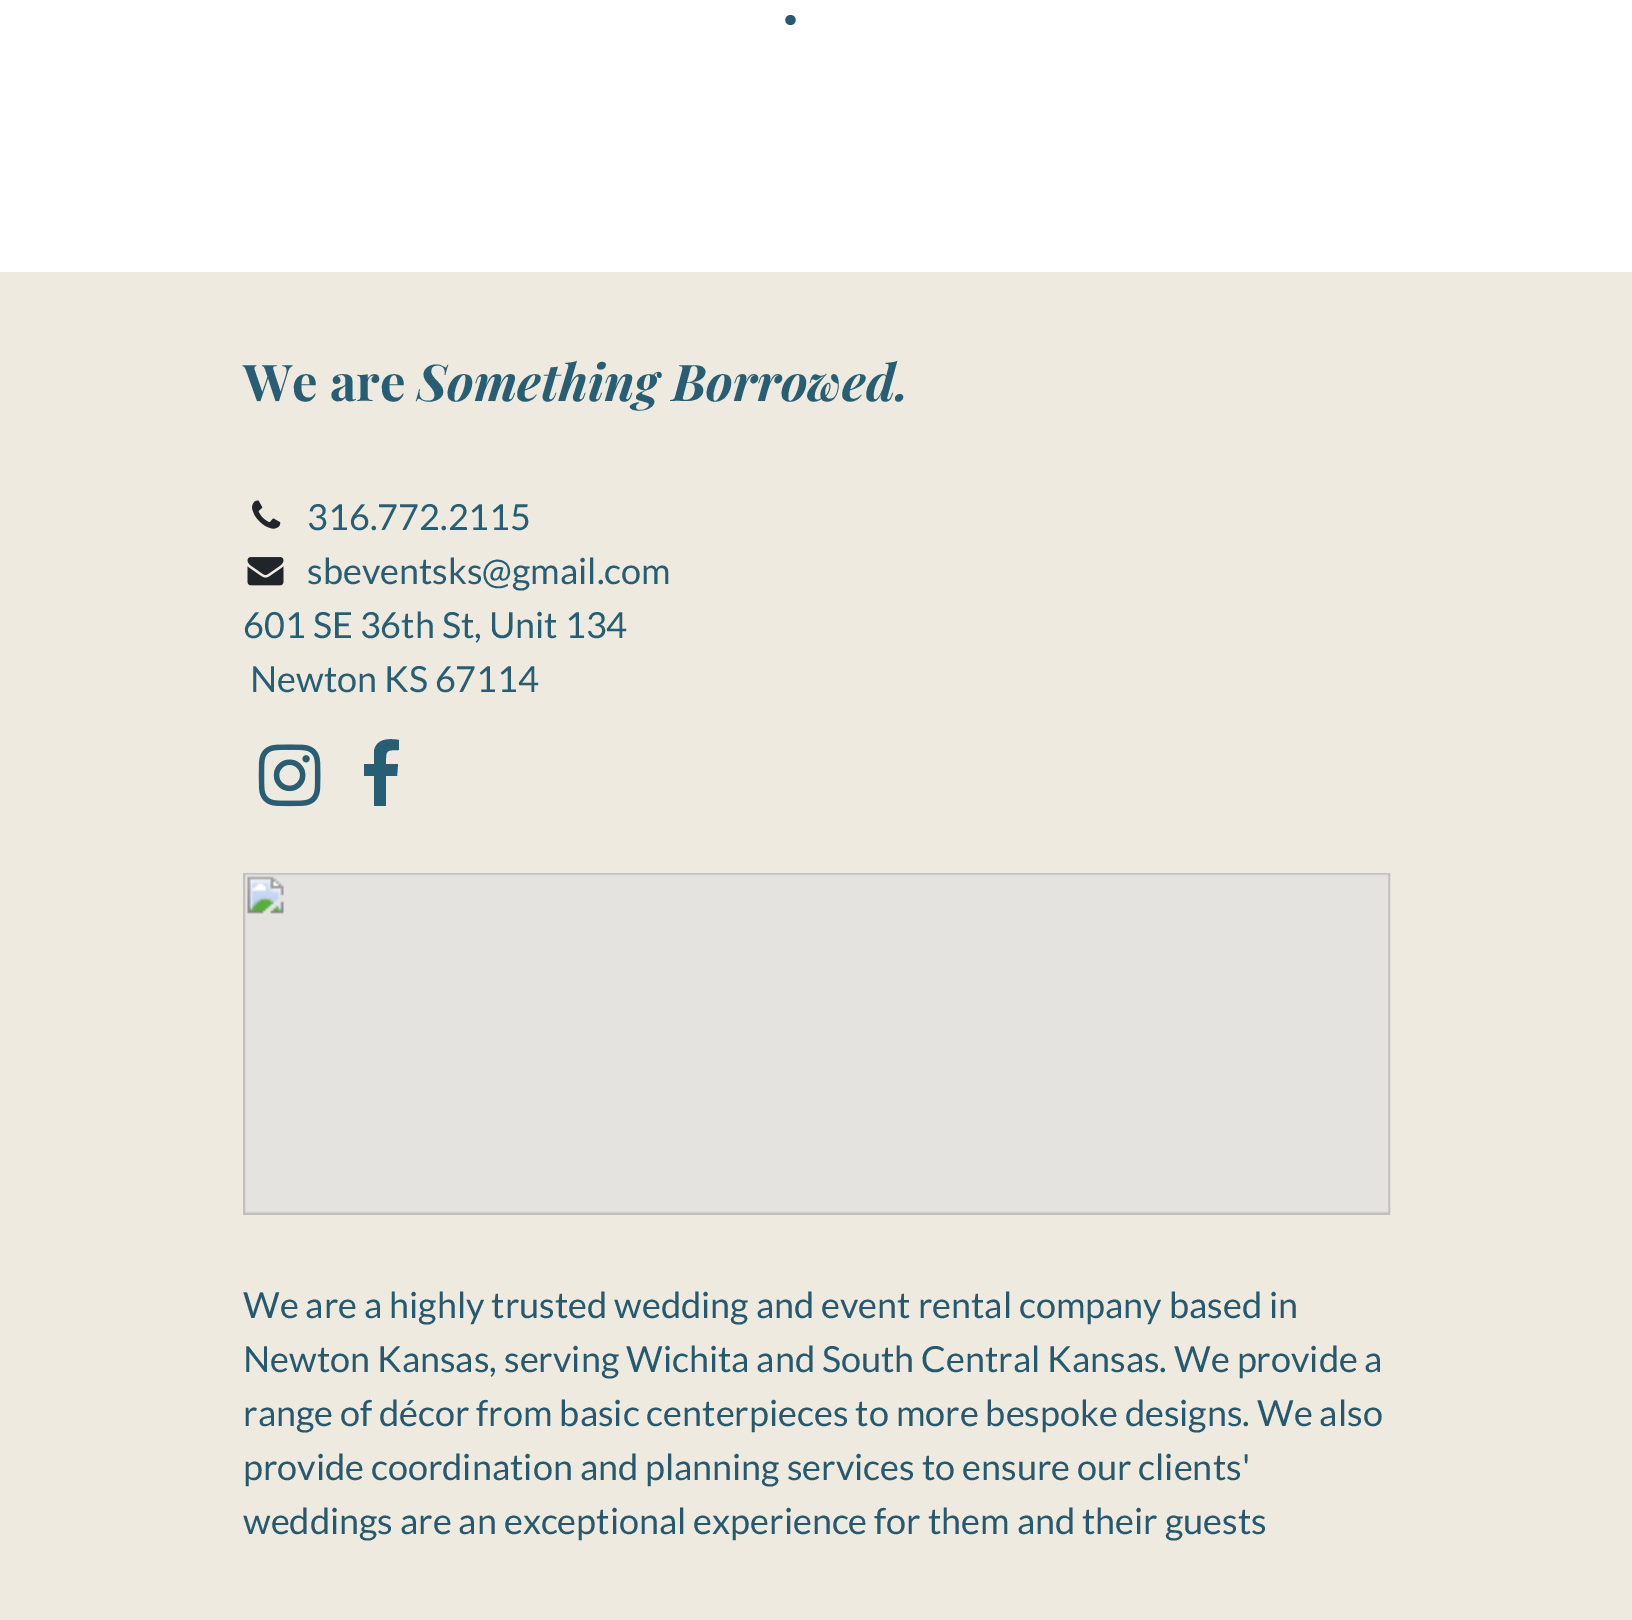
%!PS-Adobe-3.0
%%BoundingBox: 0 0 1632 1620
%%LanguageLevel: 3
%%Pages: 1
%%EndComments
%%BeginProlog
/setink { 3 { 255 div 3 1 roll } repeat setrgbcolor } def
/usefont { [ exch dup neg 0 0 3 -1 roll 0 0 ] selectfont } def
/drawtext { setink usefont moveto show } def
/fillbox { setink rectfill } def
/drawimage { 5 dict begin { /h /w /y /x /name } { exch def } forall
  gsave x y translate w h scale
  w h 8 [w 0 0 h 0 0] name (r) file false 3 colorimage grestore end } def
%%EndProlog
%%BeginSetup
<< /PageSize [1632 1620] >> setpagedevice
%%EndSetup
%%Page: 1 1
0 1620 translate 1 -1 scale
4 setmiterlimit
0 0 1632 1620 255 255 255 fillbox
(.) 781 24 /PlayfairDisplay-Medium 74 38 89 110 drawtext
0 272 1632 1348 239 234 224 fillbox
(We are) 243 401 /PlayfairDisplay-Bold 50.75 40 94 116 drawtext
(Something Borrowed.) 417 401 /PlayfairDisplay-BoldItalic 50.75 40 94 116 drawtext
(assets/img1.rgb) 252 500 29 29 drawimage
(316.772.2115) 307 530 /Lato-Regular 36 40 94 116 drawtext
(assets/img2.rgb) 247 557 37 29 drawimage
(sbeventsks@gmail.com) 307 584 /Lato-Regular 36 40 94 116 drawtext
(601 SE 36th St, Unit 134) 243 638 /Lato-Regular 36 40 94 116 drawtext
(Newton KS 67114) 250 692 /Lato-Regular 36 40 94 116 drawtext
(assets/img3.rgb) 258 744 63 63 drawimage
399 740 moveto 399 750 lineto 385 750 386 751 386 764 curveto 398 764 lineto 397 776 lineto 386 776 lineto 386 806 lineto 374 806 lineto 374 776 lineto 364 776 lineto 364 764 lineto 374 764 lineto 374 751 lineto 376 739 388 738 399 740 curveto closepath fill
(assets/img4.rgb) 243 873 1148 342 drawimage
(We are a highly trusted wedding and event rental company based in) 243 1318 /Lato-Regular 36 38 89 110 drawtext
(Newton Kansas, serving Wichita and South Central Kansas. We provide a) 243 1372 /Lato-Regular 36 38 89 110 drawtext
(range of décor from basic centerpieces to more bespoke designs. We also) 243 1426 /Lato-Regular 36 38 89 110 drawtext
(provide coordination and planning services to ensure our clients') 243 1480 /Lato-Regular 36 38 89 110 drawtext
(weddings are an exceptional experience for them and their guests) 243 1534 /Lato-Regular 36 38 89 110 drawtext
showpage
%%EOF
